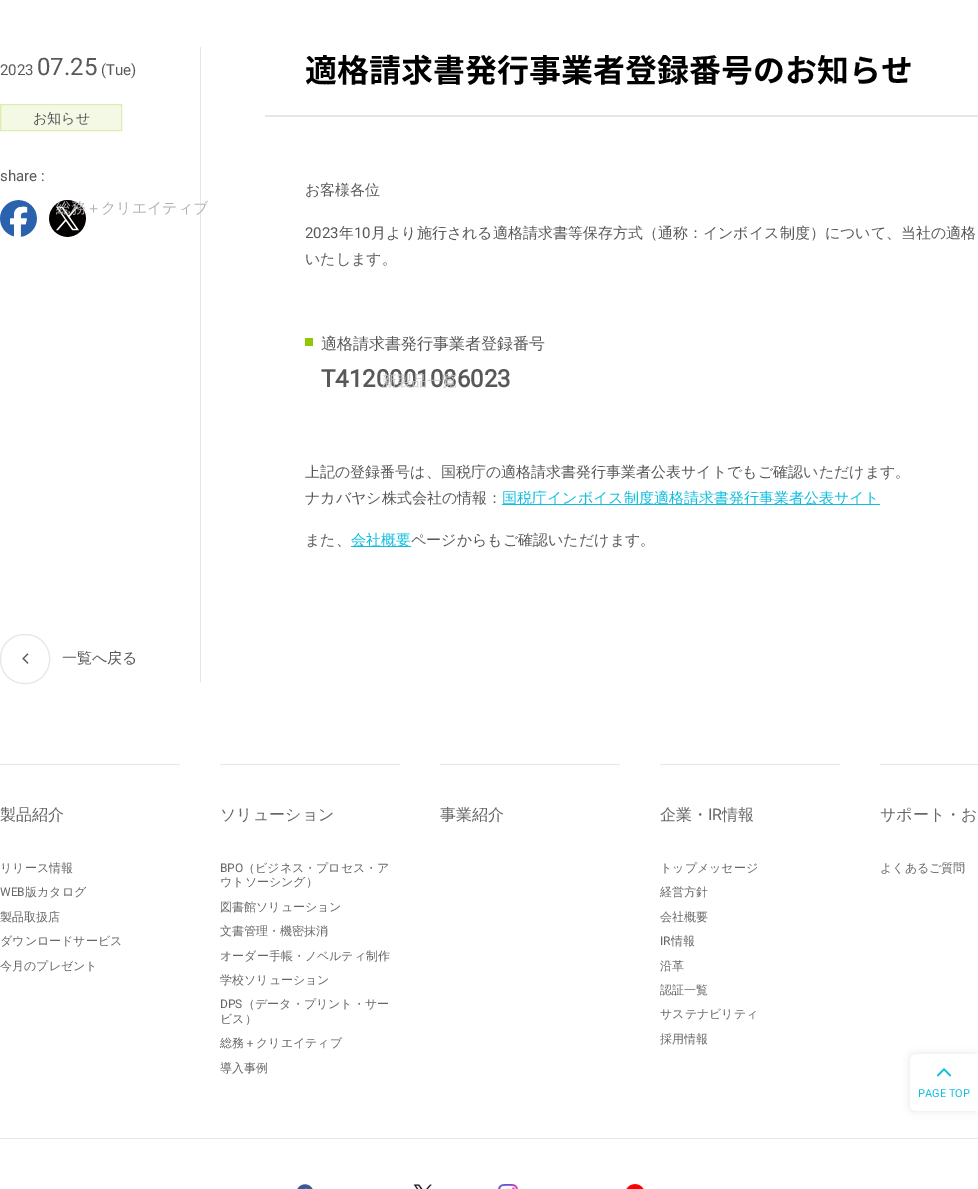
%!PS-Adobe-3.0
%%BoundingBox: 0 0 978 1189
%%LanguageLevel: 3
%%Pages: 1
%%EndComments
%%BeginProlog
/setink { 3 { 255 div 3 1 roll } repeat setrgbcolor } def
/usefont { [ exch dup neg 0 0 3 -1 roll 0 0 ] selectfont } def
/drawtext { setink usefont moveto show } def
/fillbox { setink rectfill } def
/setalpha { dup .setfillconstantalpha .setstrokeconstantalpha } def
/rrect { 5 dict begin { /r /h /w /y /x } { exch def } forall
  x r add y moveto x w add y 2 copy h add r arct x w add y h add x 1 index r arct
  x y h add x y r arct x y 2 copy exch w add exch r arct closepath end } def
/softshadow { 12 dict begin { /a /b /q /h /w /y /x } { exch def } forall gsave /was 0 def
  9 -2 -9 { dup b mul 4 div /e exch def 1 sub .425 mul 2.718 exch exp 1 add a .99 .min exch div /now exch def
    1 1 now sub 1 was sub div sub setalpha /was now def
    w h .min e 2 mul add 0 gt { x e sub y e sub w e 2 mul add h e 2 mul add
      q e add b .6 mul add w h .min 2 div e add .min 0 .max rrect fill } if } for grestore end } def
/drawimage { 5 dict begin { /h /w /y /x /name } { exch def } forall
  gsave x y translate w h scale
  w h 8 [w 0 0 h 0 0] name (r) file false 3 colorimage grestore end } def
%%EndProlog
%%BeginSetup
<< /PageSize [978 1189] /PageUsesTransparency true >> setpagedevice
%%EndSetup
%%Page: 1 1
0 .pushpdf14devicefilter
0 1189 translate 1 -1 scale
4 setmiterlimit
0 0 978 1189 255 255 255 fillbox
(2023) 0 75 /Roboto-Regular 15 88 88 88 drawtext
(07.25) 37 75 /Roboto-Regular 24 88 88 88 drawtext
(\(Tue\)) 101 75 /Roboto-Regular 15 88 88 88 drawtext
244 249 230 setink
0.5 104.5 moveto 121.5 104.5 lineto 121.5 130.5 lineto 0.5 130.5 lineto closepath gsave fill grestore
220 237 177 setink
stroke
(お知らせ) 33 123 /WenQuanYiZenHei-Medium 14 88 88 88 drawtext
(share :) 0 181 /Roboto-Regular 15 88 88 88 drawtext
(assets/img1.rgb) 0 200 37 37 drawimage
(assets/img2.rgb) 49 200 37 37 drawimage
200 47 1 635 230 230 230 fillbox
265 115 713 2 230 230 230 fillbox
(適格請求書発行事業者登録番号のお知らせ) 305 82 /NotoSansJP-Bold 32 0 0 0 drawtext
(お客様各位) 305 195 /WenQuanYiZenHei-Medium 15 88 88 88 drawtext
(2023) 305 238 /Roboto-Regular 15 88 88 88 drawtext
(年) 339 238 /WenQuanYiZenHei-Medium 15 88 88 88 drawtext
(10) 354 238 /Roboto-Regular 15 88 88 88 drawtext
(月より施行される適格請求書等保存方式（通称：インボイス制度）について、当社の適格) 371 238 /WenQuanYiZenHei-Medium 15 88 88 88 drawtext
(いたします。) 305 264 /WenQuanYiZenHei-Medium 15 88 88 88 drawtext
305 338 8 8 146 199 8 fillbox
(適格請求書発行事業者登録番号) 321 349 /WenQuanYiZenHei-Medium 16 88 88 88 drawtext
(T4120001086023) 321 387 /Roboto-Bold 24 88 88 88 drawtext
(上記の登録番号は、国税庁の適格請求書発行事業者公表サイトでもご確認いただけます。) 305 477 /WenQuanYiZenHei-Medium 15 88 88 88 drawtext
(ナカバヤシ株式会社の情報：) 305 503 /WenQuanYiZenHei-Medium 15 88 88 88 drawtext
502 504 378 1 15 190 223 fillbox
(国税庁インボイス制度適格請求書発行事業者公表サイト) 502 503 /WenQuanYiZenHei-Medium 15 15 190 223 drawtext
(また、) 305 545 /WenQuanYiZenHei-Medium 15 88 88 88 drawtext
351 546 60 1 15 190 223 fillbox
(会社概要) 351 545 /WenQuanYiZenHei-Medium 15 15 190 223 drawtext
(ページからもご確認いただけます。) 411 545 /WenQuanYiZenHei-Medium 15 88 88 88 drawtext
230 230 230 setink
0.5 634.5 49 49 23.5 rrect stroke
(assets/img3.rgb) 22 653 7 11 drawimage
(一覧へ戻る) 62 663 /WenQuanYiZenHei-Medium 15 88 88 88 drawtext
0 764 180 1 230 230 230 fillbox
(製品紹介) 0 820 /WenQuanYiZenHei-Medium 16 102 102 102 drawtext
(リリース情報) 0 872 /WenQuanYiZenHei-Medium 12 102 102 102 drawtext
(WEB) 0 896 /Roboto-Regular 12 102 102 102 drawtext
(版カタログ) 25 896 /WenQuanYiZenHei-Medium 12 102 102 102 drawtext
(製品取扱店) 0 921 /WenQuanYiZenHei-Medium 12 102 102 102 drawtext
(ダウンロードサービス) 0 945 /WenQuanYiZenHei-Medium 12 102 102 102 drawtext
(今月のプレゼント) 0 970 /WenQuanYiZenHei-Medium 12 102 102 102 drawtext
220 764 180 1 230 230 230 fillbox
(ソリューション) 220 820 /WenQuanYiZenHei-Medium 16 102 102 102 drawtext
(BPO) 220 872 /Roboto-Regular 12 102 102 102 drawtext
(（ビジネス・プロセス・ア) 243 872 /WenQuanYiZenHei-Medium 12 102 102 102 drawtext
(ウトソーシング）) 220 886 /WenQuanYiZenHei-Medium 12 102 102 102 drawtext
(図書館ソリューション) 220 911 /WenQuanYiZenHei-Medium 12 102 102 102 drawtext
(文書管理・機密抹消) 220 935 /WenQuanYiZenHei-Medium 12 102 102 102 drawtext
(オーダー手帳・ノベルティ制作) 220 960 /WenQuanYiZenHei-Medium 12 102 102 102 drawtext
(学校ソリューション) 220 984 /WenQuanYiZenHei-Medium 12 102 102 102 drawtext
(DPS) 220 1008 /Roboto-Regular 12 102 102 102 drawtext
(（データ・プリント・サー) 243 1008 /WenQuanYiZenHei-Medium 12 102 102 102 drawtext
(ビス）) 220 1023 /WenQuanYiZenHei-Medium 12 102 102 102 drawtext
(総務＋クリエイティブ) 220 1047 /WenQuanYiZenHei-Medium 12 102 102 102 drawtext
(導入事例) 220 1072 /WenQuanYiZenHei-Medium 12 102 102 102 drawtext
440 764 180 1 230 230 230 fillbox
(事業紹介) 440 820 /WenQuanYiZenHei-Medium 16 102 102 102 drawtext
660 764 180 1 230 230 230 fillbox
(企業・) 660 820 /WenQuanYiZenHei-Medium 16 102 102 102 drawtext
(IR) 708 820 /Roboto-Regular 16 102 102 102 drawtext
(情報) 722 820 /WenQuanYiZenHei-Medium 16 102 102 102 drawtext
(トップメッセージ) 660 872 /WenQuanYiZenHei-Medium 12 102 102 102 drawtext
(経営方針) 660 896 /WenQuanYiZenHei-Medium 12 102 102 102 drawtext
(会社概要) 660 921 /WenQuanYiZenHei-Medium 12 102 102 102 drawtext
(IR) 660 945 /Roboto-Regular 12 102 102 102 drawtext
(情報) 671 945 /WenQuanYiZenHei-Medium 12 102 102 102 drawtext
(沿革) 660 970 /WenQuanYiZenHei-Medium 12 102 102 102 drawtext
(認証一覧) 660 994 /WenQuanYiZenHei-Medium 12 102 102 102 drawtext
(サステナビリティ) 660 1018 /WenQuanYiZenHei-Medium 12 102 102 102 drawtext
(採用情報) 660 1043 /WenQuanYiZenHei-Medium 12 102 102 102 drawtext
880 764 98 1 230 230 230 fillbox
(サポート・お) 880 820 /WenQuanYiZenHei-Medium 16 102 102 102 drawtext
(よくあるご質問) 880 872 /WenQuanYiZenHei-Medium 12 102 102 102 drawtext
0 1138 978 1 230 230 230 fillbox
(assets/img4.rgb) 297 1184 16 5 drawimage
(assets/img5.rgb) 413 1184 19 5 drawimage
(assets/img6.rgb) 498 1184 20 5 drawimage
(assets/img7.rgb) 626 1184 18 5 drawimage
gsave
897 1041 moveto 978 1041 lineto 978 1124 lineto 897 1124 lineto closepath 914 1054 moveto 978 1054 lineto 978 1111 lineto 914 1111 lineto 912 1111 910 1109 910 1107 curveto 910 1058 lineto 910 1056 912 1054 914 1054 curveto closepath eoclip newpath
0 0 0 setink
910 1054 68 57 4 4 0.1 softshadow
grestore
(assets/img8.rgb) 936 1068 16 9 drawimage
(PAGE TOP) 918 1097 /Roboto-Regular 11 15 190 223 drawtext
(総務＋クリエイティブ) 56 213 /WenQuanYiZenHei-Medium 15 178 176 176 drawtext
(新製品一覧) 382 386 /WenQuanYiZenHei-Medium 15 201 201 201 drawtext
.poppdf14devicefilter showpage
%%EOF
